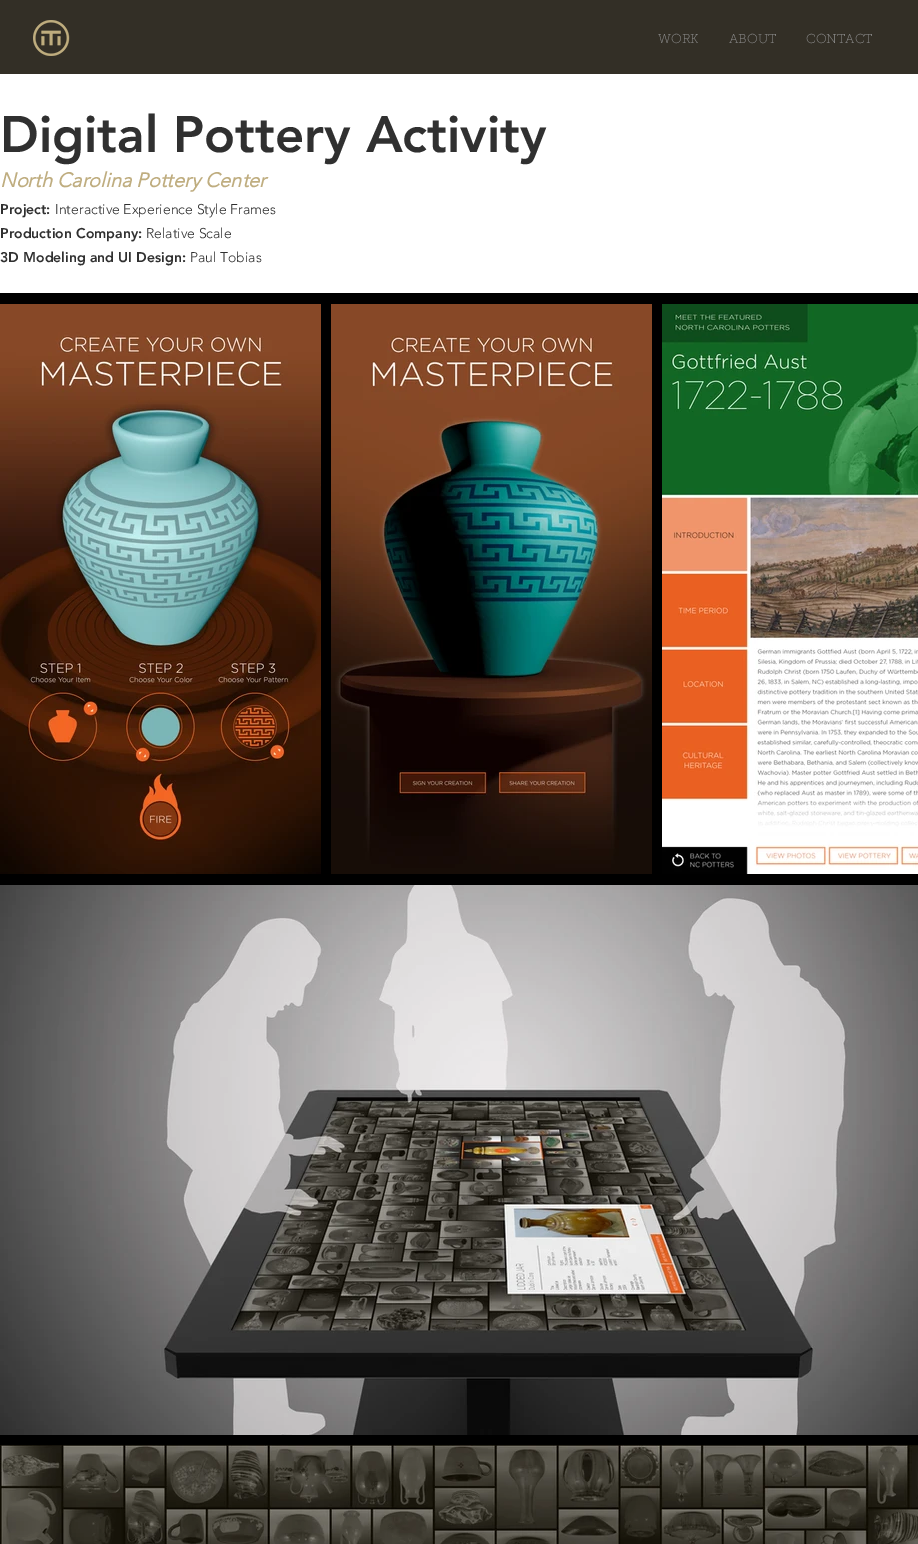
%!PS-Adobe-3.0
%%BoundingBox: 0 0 918 1544
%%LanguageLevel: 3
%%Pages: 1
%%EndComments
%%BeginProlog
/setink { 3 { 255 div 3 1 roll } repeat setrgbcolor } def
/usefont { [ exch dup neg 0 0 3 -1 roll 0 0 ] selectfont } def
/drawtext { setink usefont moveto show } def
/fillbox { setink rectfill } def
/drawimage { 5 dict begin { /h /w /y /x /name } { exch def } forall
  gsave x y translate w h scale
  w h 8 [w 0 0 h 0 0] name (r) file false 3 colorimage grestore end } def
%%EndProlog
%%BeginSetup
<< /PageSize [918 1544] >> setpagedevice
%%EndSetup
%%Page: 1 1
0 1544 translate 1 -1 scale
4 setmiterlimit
0 0 918 1544 0 0 0 fillbox
0 0 918 74 51 47 38 fillbox
(assets/img1.rgb) 33 20 37 36 drawimage
(WORK) 658 43 /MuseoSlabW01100-Thin 13 144 144 144 drawtext
(ABOUT) 729 43 /MuseoSlabW01100-Thin 13 144 144 144 drawtext
(CONTACT) 806 43 /MuseoSlabW01100-Thin 13 144 144 144 drawtext
0 74 918 219 255 255 255 fillbox
(Digital Pottery Activity) 0 152 /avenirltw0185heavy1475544-Black 51 48 48 48 drawtext
(North Carolina Pottery Center) 0 187 /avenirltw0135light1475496-BoldItalic 20 191 173 127 drawtext
(Project:) 0 214 /avenirltw0185heavy1475544-Black 14 48 48 48 drawtext
(Interactive Experience Style Frames) 55 214 /avenirltw0135light1475496-Light 14 48 48 48 drawtext
(Production Company:) 0 238 /avenirltw0185heavy1475544-Black 14 48 48 48 drawtext
(Relative Scale) 146 238 /avenirltw0135light1475496-Light 14 48 48 48 drawtext
(3D Modeling and UI Design:) 0 262 /avenirltw0185heavy1475544-Black 14 48 48 48 drawtext
(Paul Tobias) 190 262 /avenirltw0135light1475496-Light 14 48 48 48 drawtext
(assets/img2.rgb) 0 304 321 570 drawimage
(assets/img3.rgb) 331 304 321 570 drawimage
(assets/img4.rgb) 662 304 256 570 drawimage
(assets/img5.rgb) 0 885 918 550 drawimage
(assets/img6.rgb) 0 1445 918 99 drawimage
showpage
%%EOF
